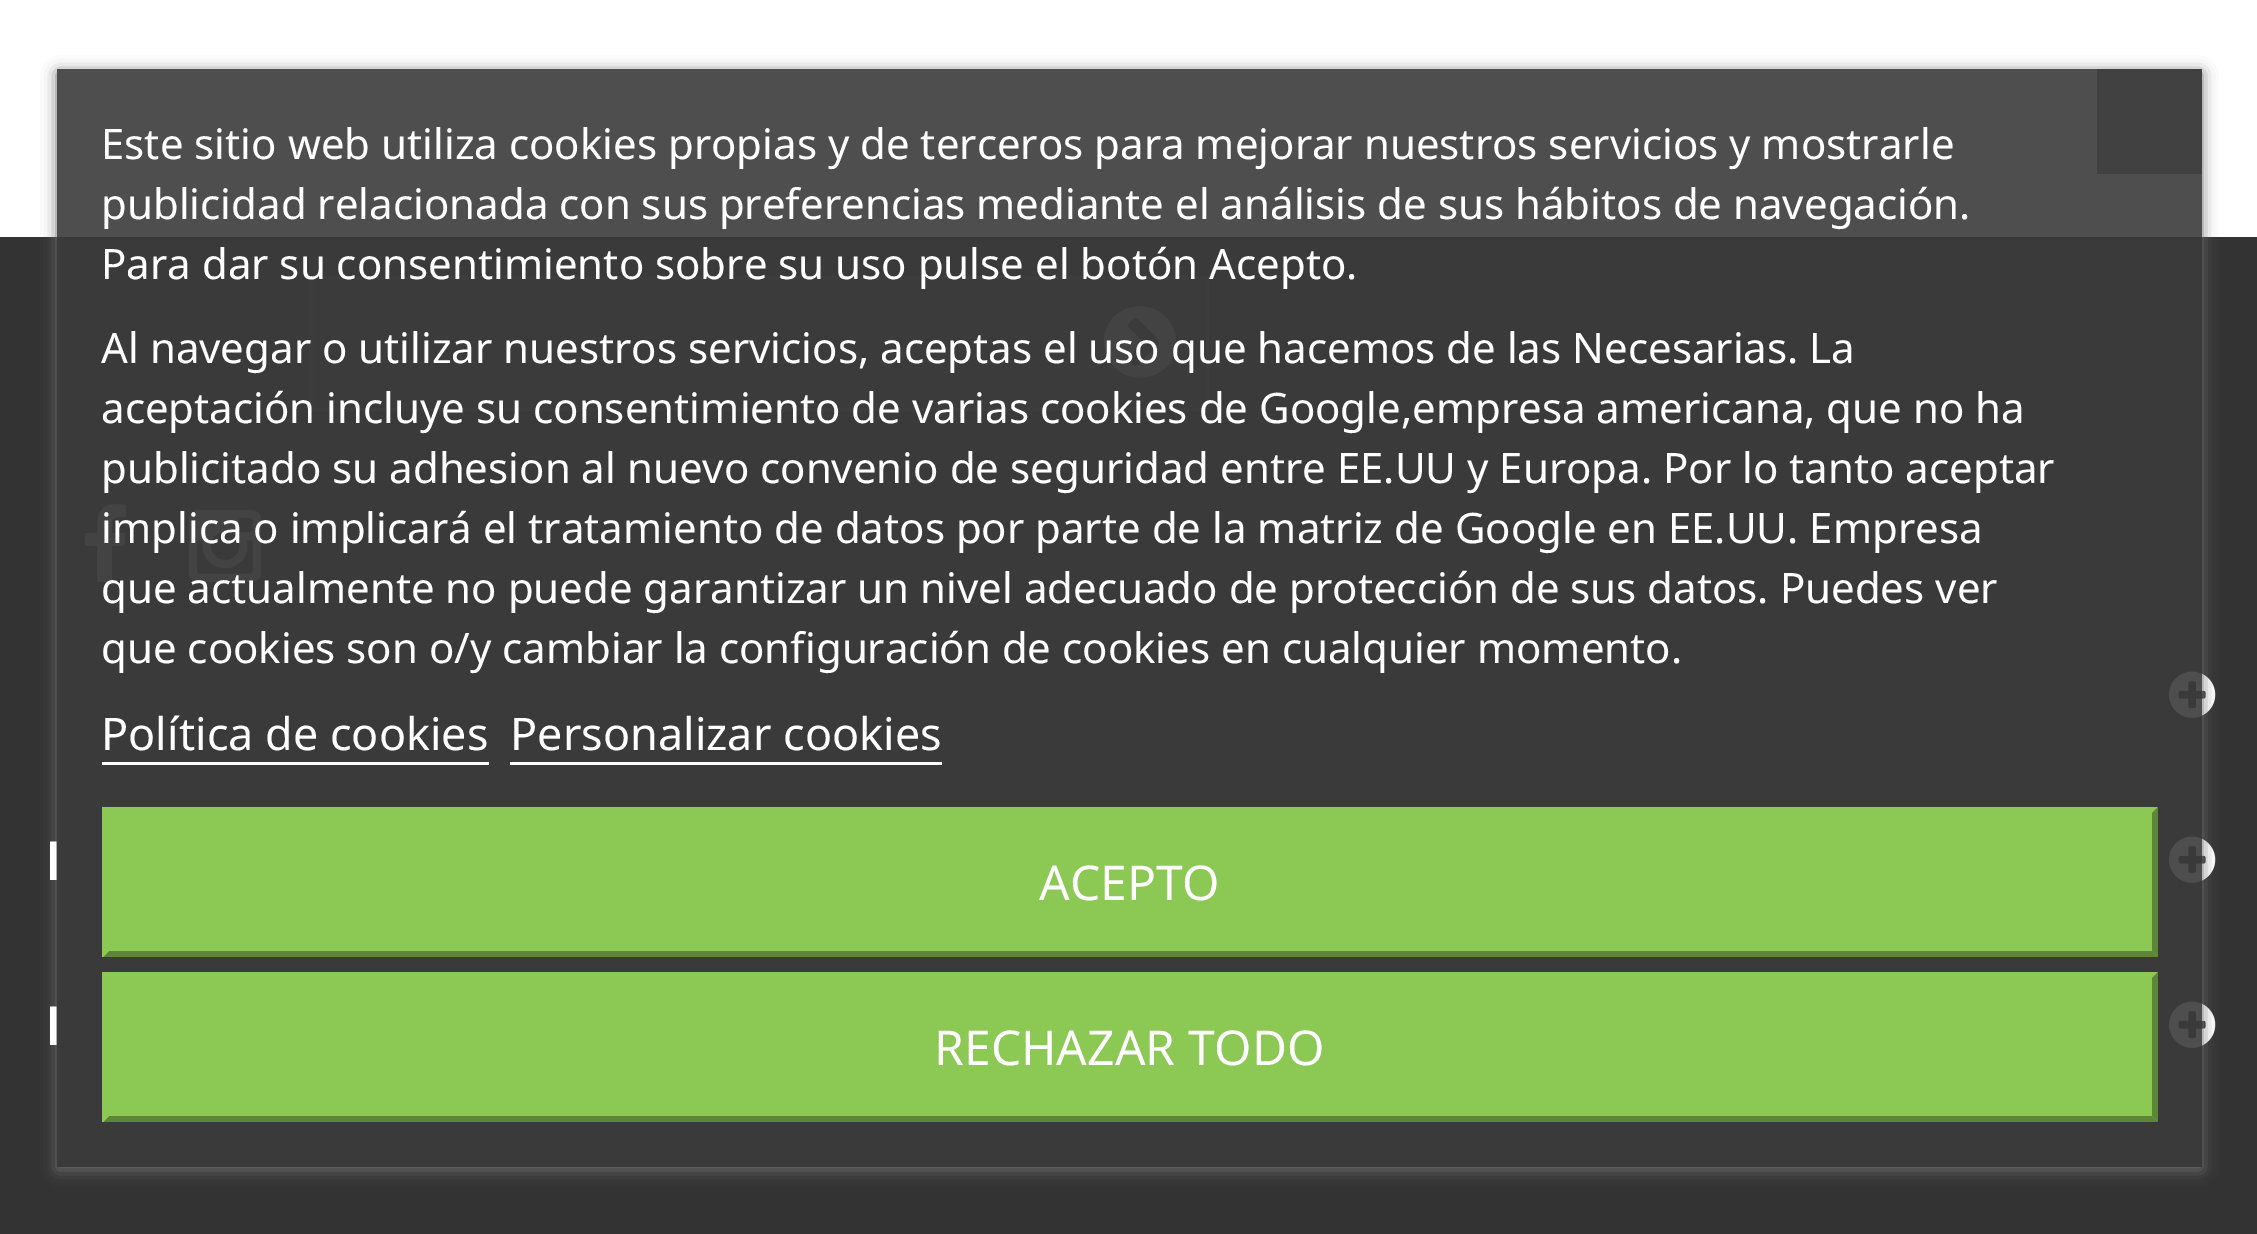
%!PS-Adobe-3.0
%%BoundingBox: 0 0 2257 1234
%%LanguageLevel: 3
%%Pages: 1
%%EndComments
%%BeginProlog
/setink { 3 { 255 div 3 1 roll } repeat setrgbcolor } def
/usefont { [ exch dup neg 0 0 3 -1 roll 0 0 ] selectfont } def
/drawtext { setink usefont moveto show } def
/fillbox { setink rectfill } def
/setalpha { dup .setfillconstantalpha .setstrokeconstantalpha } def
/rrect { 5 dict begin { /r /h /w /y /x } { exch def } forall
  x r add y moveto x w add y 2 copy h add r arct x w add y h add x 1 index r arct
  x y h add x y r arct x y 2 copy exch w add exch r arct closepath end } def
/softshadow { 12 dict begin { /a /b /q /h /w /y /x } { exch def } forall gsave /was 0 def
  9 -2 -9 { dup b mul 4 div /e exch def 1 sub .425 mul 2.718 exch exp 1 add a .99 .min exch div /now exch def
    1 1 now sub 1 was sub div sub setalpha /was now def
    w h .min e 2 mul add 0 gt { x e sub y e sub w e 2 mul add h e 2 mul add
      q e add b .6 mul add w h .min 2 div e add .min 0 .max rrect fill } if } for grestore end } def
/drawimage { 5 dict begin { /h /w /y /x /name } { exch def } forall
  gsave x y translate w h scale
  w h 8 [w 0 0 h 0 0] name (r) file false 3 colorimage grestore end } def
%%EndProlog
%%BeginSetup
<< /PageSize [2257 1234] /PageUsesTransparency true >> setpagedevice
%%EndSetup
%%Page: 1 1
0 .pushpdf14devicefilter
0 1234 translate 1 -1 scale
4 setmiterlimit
0 0 2257 1234 255 255 255 fillbox
0 237 2257 997 51 51 51 fillbox
60 60 60 setink
310.5 277.5 moveto 1207.5 277.5 lineto 1207.5 409.5 lineto 310.5 409.5 lineto closepath gsave fill grestore
81 81 81 setink
3 setlinewidth
stroke
144 143 143 setink
1138 365 moveto 1155 348 lineto 1161 342 1161 342 1155 336 curveto 1145 326 lineto 1140 321 1137 315 1132 320 curveto 1127 325 1126 325 1131 330 curveto 1143 342 lineto 1131 354 lineto 1127 358 1127 359 1131 363 curveto 1133 365 1135 368 1138 365 curveto closepath 1171 324 moveto 1175 330 1176 337 1176 344 curveto 1174 380 1127 390 1109 360 curveto 1105 354 1104 347 1104 340 curveto 1106 304 1153 294 1171 324 curveto closepath fill
126 505 moveto 126 517 lineto 110 517 112 517 112 533 curveto 125 533 lineto 124 546 lineto 112 546 lineto 112 582 lineto 97 582 lineto 97 546 lineto 85 546 lineto 85 533 lineto 97 533 lineto 98 518 lineto 100 504 114 503 126 505 curveto closepath fill
(assets/img1.rgb) 189 510 72 72 drawimage
(assets/img2.rgb) 2169 671 47 47 drawimage
(assets/img2.rgb) 2169 836 47 47 drawimage
(assets/img2.rgb) 2169 1001 47 47 drawimage
gsave
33 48 moveto 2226 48 lineto 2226 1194 lineto 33 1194 lineto closepath 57 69 moveto 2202 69 lineto 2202 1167 lineto 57 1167 lineto closepath eoclip newpath
112 112 112 setink
57 72 2145 1098 0 7.5 1 softshadow
grestore
0.9 setalpha
57 69 2145 1098 59 59 59 fillbox
1 setalpha
(Este sitio web utiliza cookies propias y de terceros para mejorar nuestros servicios y mostrarle) 101 159 /NotoSans-Regular 42 255 255 255 drawtext
(publicidad relacionada con sus preferencias mediante el análisis de sus hábitos de navegación.) 101 219 /NotoSans-Regular 42 255 255 255 drawtext
(Para dar su consentimiento sobre su uso pulse el botón Acepto.) 101 279 /NotoSans-Regular 42 255 255 255 drawtext
(Al navegar o utilizar nuestros servicios, aceptas el uso que hacemos de las Necesarias. La) 101 363 /NotoSans-Regular 42 255 255 255 drawtext
(aceptación incluye su consentimiento de varias cookies de Google,empresa americana, que no ha) 101 423 /NotoSans-Regular 42 255 255 255 drawtext
(publicitado su adhesion al nuevo convenio de seguridad entre EE.UU y Europa. Por lo tanto aceptar) 101 483 /NotoSans-Regular 42 255 255 255 drawtext
(implica o implicará el tratamiento de datos por parte de la matriz de Google en EE.UU. Empresa) 101 543 /NotoSans-Regular 42 255 255 255 drawtext
(que actualmente no puede garantizar un nivel adecuado de protección de sus datos. Puedes ver) 101 603 /NotoSans-Regular 42 255 255 255 drawtext
(que cookies son o/y cambiar la configuración de cookies en cualquier momento.) 101 663 /NotoSans-Regular 42 255 255 255 drawtext
(Política de cookies) 101 750 /NotoSans-Regular 45 255 255 255 drawtext
102 762 387 3 255 255 255 fillbox
(Personalizar cookies) 510 750 /NotoSans-Regular 45 255 255 255 drawtext
510 762 432 3 255 255 255 fillbox
102 807 2055 150 139 201 84 fillbox
103 807 moveto 2158 807 lineto 2152 813 lineto 109 813 lineto closepath fill
93 134 56 setink
2158 807 moveto 2158 957 lineto 2152 951 lineto 2152 813 lineto closepath fill
2158 957 moveto 103 957 lineto 109 951 lineto 2152 951 lineto closepath fill
139 201 84 setink
103 957 moveto 103 807 lineto 109 813 lineto 109 951 lineto closepath fill
(ACEPTO) 1039 900 /NotoSans-Regular 48 255 255 255 drawtext
102 972 2055 150 139 201 84 fillbox
103 972 moveto 2158 972 lineto 2152 978 lineto 109 978 lineto closepath fill
93 134 56 setink
2158 972 moveto 2158 1122 lineto 2152 1116 lineto 2152 978 lineto closepath fill
2158 1122 moveto 103 1122 lineto 109 1116 lineto 2152 1116 lineto closepath fill
139 201 84 setink
103 1122 moveto 103 972 lineto 109 978 lineto 109 1116 lineto closepath fill
(RECHAZAR TODO) 934 1065 /NotoSans-Regular 48 255 255 255 drawtext
2097 69 105 105 65 65 65 fillbox
(I) 45 880 /OpenSans-SemiBold 54 255 255 255 drawtext
(I) 45 1045 /OpenSans-SemiBold 54 255 255 255 drawtext
.poppdf14devicefilter showpage
%%EOF
